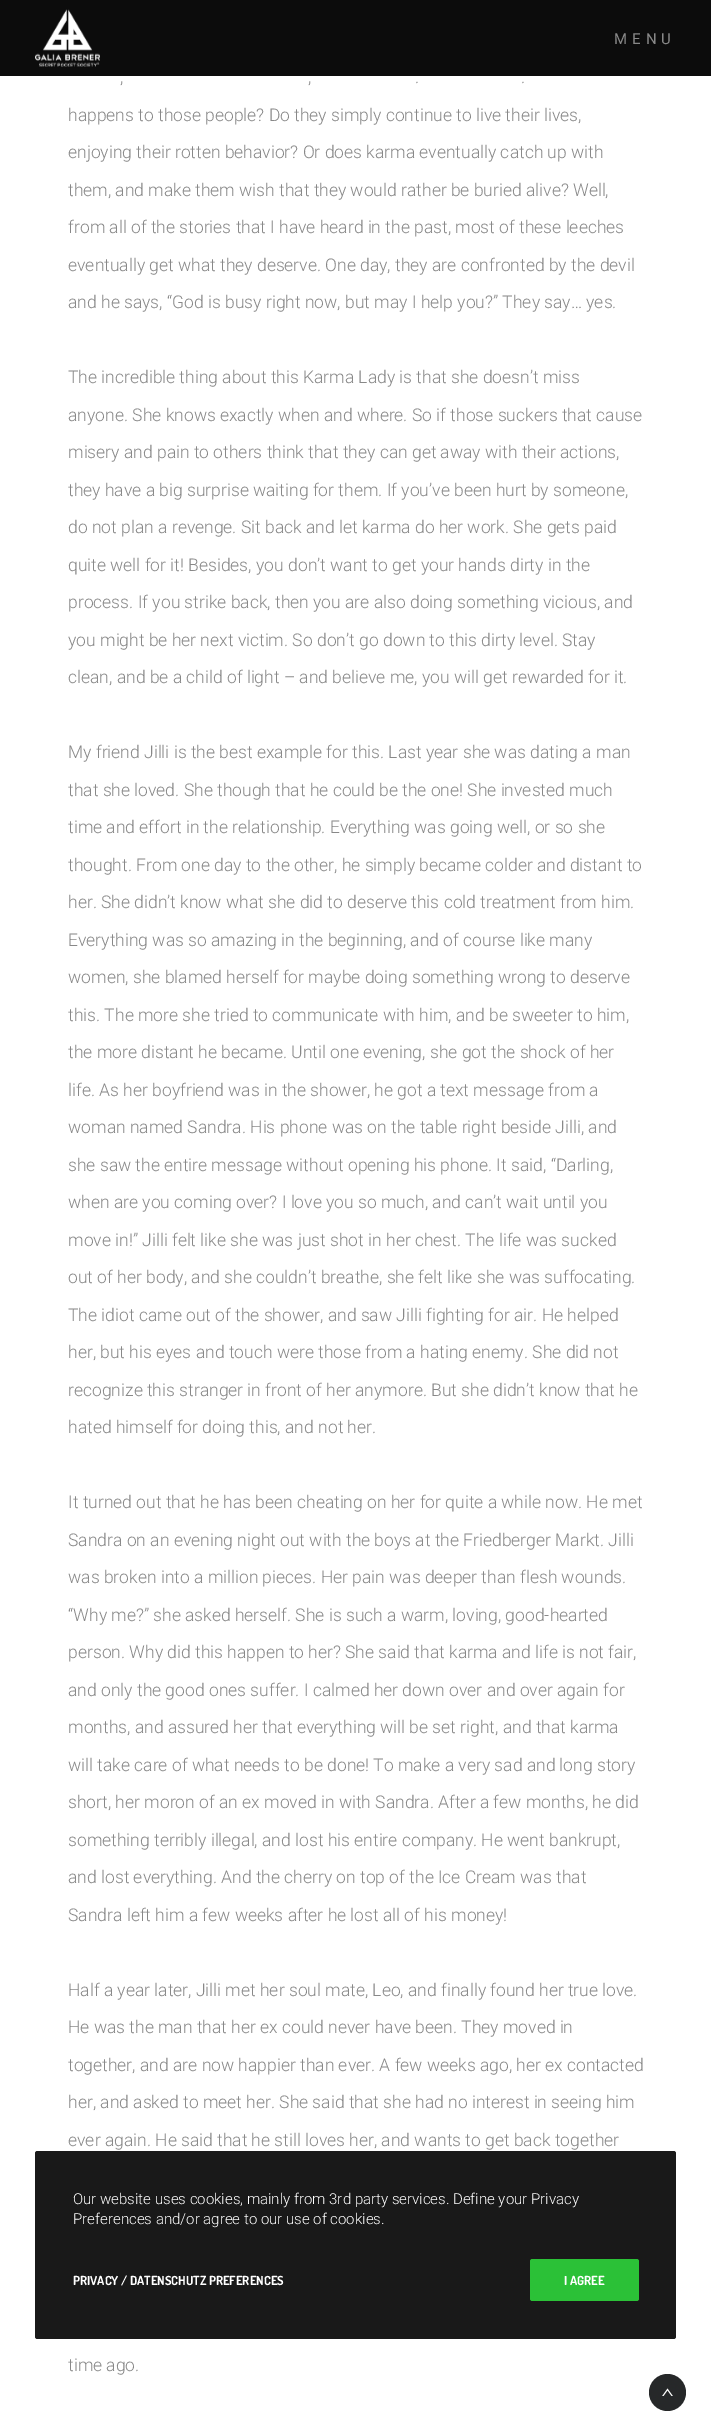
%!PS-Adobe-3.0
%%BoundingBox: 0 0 711 2436
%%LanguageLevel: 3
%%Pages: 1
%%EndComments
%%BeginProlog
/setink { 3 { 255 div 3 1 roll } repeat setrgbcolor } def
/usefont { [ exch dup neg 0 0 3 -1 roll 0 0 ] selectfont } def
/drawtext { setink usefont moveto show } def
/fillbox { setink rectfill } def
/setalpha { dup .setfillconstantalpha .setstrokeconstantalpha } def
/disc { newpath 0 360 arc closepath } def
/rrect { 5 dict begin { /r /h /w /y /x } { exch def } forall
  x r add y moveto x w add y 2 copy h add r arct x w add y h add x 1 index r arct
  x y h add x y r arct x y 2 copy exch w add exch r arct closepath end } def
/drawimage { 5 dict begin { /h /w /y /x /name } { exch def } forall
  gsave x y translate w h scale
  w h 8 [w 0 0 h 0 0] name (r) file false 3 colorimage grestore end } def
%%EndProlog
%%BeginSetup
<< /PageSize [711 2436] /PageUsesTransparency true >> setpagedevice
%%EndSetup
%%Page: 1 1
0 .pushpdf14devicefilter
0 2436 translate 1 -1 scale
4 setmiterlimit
0 0 711 2436 255 255 255 fillbox
0 0 711 76 12 12 12 fillbox
(assets/img1.rgb) 35 9 65 58 drawimage
/Roboto-Regular 15 usefont
136 136 136 setink
614 44 moveto 5 0 (MENU) ashow
(,) 120 83 /Roboto-Light 17.5 136 136 136 drawtext
(,) 308 83 /Roboto-Light 17.5 136 136 136 drawtext
(.) 415 83 /Roboto-Light 17.5 136 136 136 drawtext
(.) 521 83 /Roboto-Light 17.5 136 136 136 drawtext
(happens to those people? Do they simply continue to live their lives,) 68 121 /Roboto-Light 17.5 136 136 136 drawtext
(enjoying their rotten behavior? Or does karma eventually catch up with) 68 158 /Roboto-Light 17.5 136 136 136 drawtext
(them, and make them wish that they would rather be buried alive? Well,) 68 196 /Roboto-Light 17.5 136 136 136 drawtext
(from all of the stories that I have heard in the past, most of these leeches) 68 233 /Roboto-Light 17.5 136 136 136 drawtext
(eventually get what they deserve. One day, they are confronted by the devil) 68 271 /Roboto-Light 17.5 136 136 136 drawtext
(and he says, “God is busy right now, but may I help you?” They say… yes.) 68 308 /Roboto-Light 17.5 136 136 136 drawtext
(The incredible thing about this Karma Lady is that she doesn’t miss) 68 383 /Roboto-Light 17.5 136 136 136 drawtext
(anyone. She knows exactly when and where. So if those suckers that cause) 68 421 /Roboto-Light 17.5 136 136 136 drawtext
(misery and pain to others think that they can get away with their actions,) 68 458 /Roboto-Light 17.5 136 136 136 drawtext
(they have a big surprise waiting for them. If you’ve been hurt by someone,) 68 496 /Roboto-Light 17.5 136 136 136 drawtext
(do not plan a revenge. Sit back and let karma do her work. She gets paid) 68 533 /Roboto-Light 17.5 136 136 136 drawtext
(quite well for it! Besides, you don’t want to get your hands dirty in the) 68 571 /Roboto-Light 17.5 136 136 136 drawtext
(process. If you strike back, then you are also doing something vicious, and) 68 608 /Roboto-Light 17.5 136 136 136 drawtext
(you might be her next victim. So don’t go down to this dirty level. Stay) 68 646 /Roboto-Light 17.5 136 136 136 drawtext
(clean, and be a child of light – and believe me, you will get rewarded for it.) 68 683 /Roboto-Light 17.5 136 136 136 drawtext
(My friend Jilli is the best example for this. Last year she was dating a man) 68 758 /Roboto-Light 17.5 136 136 136 drawtext
(that she loved. She though that he could be the one! She invested much) 68 796 /Roboto-Light 17.5 136 136 136 drawtext
(time and effort in the relationship. Everything was going well, or so she) 68 833 /Roboto-Light 17.5 136 136 136 drawtext
(thought. From one day to the other, he simply became colder and distant to) 68 871 /Roboto-Light 17.5 136 136 136 drawtext
(her. She didn’t know what she did to deserve this cold treatment from him.) 68 908 /Roboto-Light 17.5 136 136 136 drawtext
(Everything was so amazing in the beginning, and of course like many) 68 946 /Roboto-Light 17.5 136 136 136 drawtext
(women, she blamed herself for maybe doing something wrong to deserve) 68 983 /Roboto-Light 17.5 136 136 136 drawtext
(this. The more she tried to communicate with him, and be sweeter to him,) 68 1021 /Roboto-Light 17.5 136 136 136 drawtext
(the more distant he became. Until one evening, she got the shock of her) 68 1058 /Roboto-Light 17.5 136 136 136 drawtext
(life. As her boyfriend was in the shower, he got a text message from a) 68 1096 /Roboto-Light 17.5 136 136 136 drawtext
(woman named Sandra. His phone was on the table right beside Jilli, and) 68 1133 /Roboto-Light 17.5 136 136 136 drawtext
(she saw the entire message without opening his phone. It said, “Darling,) 68 1171 /Roboto-Light 17.5 136 136 136 drawtext
(when are you coming over? I love you so much, and can’t wait until you) 68 1208 /Roboto-Light 17.5 136 136 136 drawtext
(move in!” Jilli felt like she was just shot in her chest. The life was sucked) 68 1246 /Roboto-Light 17.5 136 136 136 drawtext
(out of her body, and she couldn’t breathe, she felt like she was suffocating.) 68 1283 /Roboto-Light 17.5 136 136 136 drawtext
(The idiot came out of the shower, and saw Jilli fighting for air. He helped) 68 1321 /Roboto-Light 17.5 136 136 136 drawtext
(her, but his eyes and touch were those from a hating enemy. She did not) 68 1358 /Roboto-Light 17.5 136 136 136 drawtext
(recognize this stranger in front of her anymore. But she didn’t know that he) 68 1396 /Roboto-Light 17.5 136 136 136 drawtext
(hated himself for doing this, and not her.) 68 1433 /Roboto-Light 17.5 136 136 136 drawtext
(It turned out that he has been cheating on her for quite a while now. He met) 68 1508 /Roboto-Light 17.5 136 136 136 drawtext
(Sandra on an evening night out with the boys at the Friedberger Markt. Jilli) 68 1546 /Roboto-Light 17.5 136 136 136 drawtext
(was broken into a million pieces. Her pain was deeper than flesh wounds.) 68 1583 /Roboto-Light 17.5 136 136 136 drawtext
(“Why me?” she asked herself. She is such a warm, loving, good-hearted) 68 1621 /Roboto-Light 17.5 136 136 136 drawtext
(person. Why did this happen to her? She said that karma and life is not fair,) 68 1658 /Roboto-Light 17.5 136 136 136 drawtext
(and only the good ones suffer. I calmed her down over and over again for) 68 1696 /Roboto-Light 17.5 136 136 136 drawtext
(months, and assured her that everything will be set right, and that karma) 68 1733 /Roboto-Light 17.5 136 136 136 drawtext
(will take care of what needs to be done! To make a very sad and long story) 68 1771 /Roboto-Light 17.5 136 136 136 drawtext
(short, her moron of an ex moved in with Sandra. After a few months, he did) 68 1808 /Roboto-Light 17.5 136 136 136 drawtext
(something terribly illegal, and lost his entire company. He went bankrupt,) 68 1846 /Roboto-Light 17.5 136 136 136 drawtext
(and lost everything. And the cherry on top of the Ice Cream was that) 68 1883 /Roboto-Light 17.5 136 136 136 drawtext
(Sandra left him a few weeks after he lost all of his money!) 68 1921 /Roboto-Light 17.5 136 136 136 drawtext
(Half a year later, Jilli met her soul mate, Leo, and finally found her true love.) 68 1996 /Roboto-Light 17.5 136 136 136 drawtext
(He was the man that her ex could never have been. They moved in) 68 2033 /Roboto-Light 17.5 136 136 136 drawtext
(together, and are now happier than ever. A few weeks ago, her ex contacted) 68 2071 /Roboto-Light 17.5 136 136 136 drawtext
(her, and asked to meet her. She said that she had no interest in seeing him) 68 2108 /Roboto-Light 17.5 136 136 136 drawtext
(ever again. He said that he still loves her, and wants to get back together) 68 2146 /Roboto-Light 17.5 136 136 136 drawtext
(time ago.) 68 2371 /Roboto-Light 17.5 136 136 136 drawtext
38 40 41 setink
667.5 2392.5 18.5 disc fill
(assets/img2.rgb) 662 2388 11 8 drawimage
0.9 setalpha
0 0 0 setink
35 2151 641 188 2.5 rrect fill
1 setalpha
(Our website uses cookies, mainly from 3rd party services. Define your Privacy) 73 2204 /Roboto-Light 15 255 255 255 drawtext
(Preferences and/or agree to our use of cookies.) 73 2224 /Roboto-Light 15 255 255 255 drawtext
(PRIVACY / DATENSCHUTZ PREFERENCES) 73 2285 /Dosis-Bold 12.5 255 255 255 drawtext
43 193 55 setink
530 2259 109 42 2.5 rrect fill
(I AGREE) 564 2285 /Dosis-Bold 12.5 255 255 255 drawtext
.poppdf14devicefilter showpage
%%EOF
